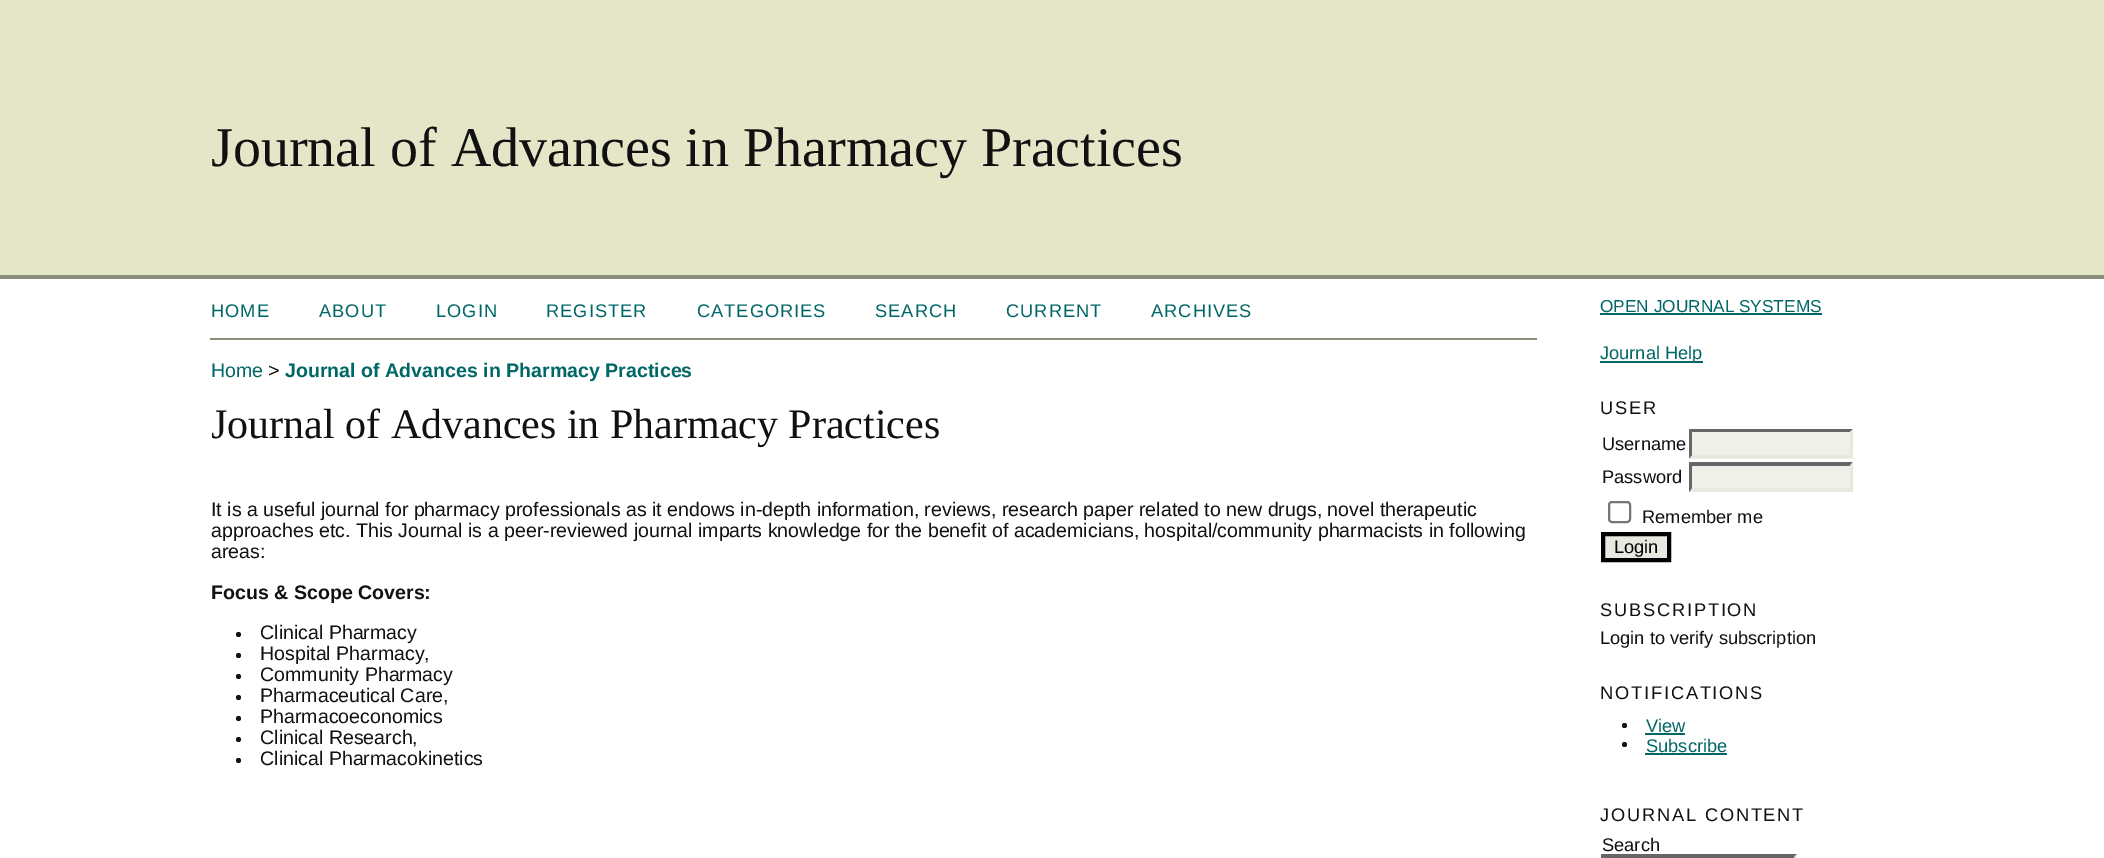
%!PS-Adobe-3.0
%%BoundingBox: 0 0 2104 858
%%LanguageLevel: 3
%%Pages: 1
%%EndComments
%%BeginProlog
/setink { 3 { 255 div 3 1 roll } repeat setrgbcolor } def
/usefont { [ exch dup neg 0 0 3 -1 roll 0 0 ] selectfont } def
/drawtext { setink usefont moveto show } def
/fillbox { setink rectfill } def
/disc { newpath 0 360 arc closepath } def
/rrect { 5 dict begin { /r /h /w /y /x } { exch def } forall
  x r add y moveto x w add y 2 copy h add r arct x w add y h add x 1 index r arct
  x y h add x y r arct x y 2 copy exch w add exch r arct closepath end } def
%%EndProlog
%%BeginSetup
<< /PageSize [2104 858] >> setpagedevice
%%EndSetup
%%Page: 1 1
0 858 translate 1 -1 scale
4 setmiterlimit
0 0 2104 858 255 255 255 fillbox
0 0 2104 275 229 229 199 fillbox
0 275 2104 4 137 142 121 fillbox
(Journal of Advances in Pharmacy Practices) 211 166 /LiberationSerif-Regular 56 17 17 17 drawtext
210 338 1327 2 137 142 121 fillbox
/LiberationSans-Regular 18.25 usefont
0 102 102 setink
211 317 moveto 1 0 (HOME) ashow
319 317 moveto 1 0 (ABOUT) ashow
436 317 moveto 1 0 (LOGIN) ashow
546 317 moveto 1 0 (REGISTER) ashow
697 317 moveto 1 0 (CATEGORIES) ashow
875 317 moveto 1 0 (SEARCH) ashow
1006 317 moveto 1 0 (CURRENT) ashow
1151 317 moveto 1 0 (ARCHIVES) ashow
(Home) 211 377 /LiberationSans-Regular 19.6 0 102 102 drawtext
(>) 268 377 /LiberationSans-Regular 19.6 17 17 17 drawtext
(Journal of Advances in Pharmacy Practices) 285 377 /LiberationSans-Bold 19.6 0 102 102 drawtext
(Journal of Advances in Pharmacy Practices) 211 438 /LiberationSerif-Regular 42 17 17 17 drawtext
(It is a useful journal for pharmacy professionals as it endows in-depth information, reviews, research paper related to new drugs, novel therapeutic) 211 516 /LiberationSans-Regular 19.6 17 17 17 drawtext
(approaches etc. This Journal is a peer-reviewed journal imparts knowledge for the benefit of academicians, hospital/community pharmacists in following) 211 537 /LiberationSans-Regular 19.6 17 17 17 drawtext
(areas:) 211 558 /LiberationSans-Regular 19.6 17 17 17 drawtext
(Focus & Scope Covers:) 211 599 /LiberationSans-Bold 19.6 17 17 17 drawtext
238.5 634.5 2.5 disc fill
(Clinical Pharmacy) 260 639 /LiberationSans-Regular 19.6 17 17 17 drawtext
238.5 655.5 2.5 disc fill
(Hospital Pharmacy,) 260 660 /LiberationSans-Regular 19.6 17 17 17 drawtext
238.5 676.5 2.5 disc fill
(Community Pharmacy) 260 681 /LiberationSans-Regular 19.6 17 17 17 drawtext
238.5 697.5 2.5 disc fill
(Pharmaceutical Care,) 260 702 /LiberationSans-Regular 19.6 17 17 17 drawtext
238.5 718.5 2.5 disc fill
(Pharmacoeconomics) 260 723 /LiberationSans-Regular 19.6 17 17 17 drawtext
238.5 739.5 2.5 disc fill
(Clinical Research,) 260 744 /LiberationSans-Regular 19.6 17 17 17 drawtext
238.5 760.5 2.5 disc fill
(Clinical Pharmacokinetics) 260 765 /LiberationSans-Regular 19.6 17 17 17 drawtext
(OPEN JOURNAL SYSTEMS) 1600 312 /LiberationSans-Regular 17.25 0 102 102 drawtext
1600 313 222 2 0 102 102 fillbox
1600 361 103 2 0 102 102 fillbox
(Journal Help) 1600 359 /LiberationSans-Regular 18.25 0 102 102 drawtext
17 17 17 setink
1600 414 moveto 1.8 0 (USER) ashow
(Username) 1602 450 /LiberationSans-Regular 18.25 17 17 17 drawtext
1689 429 164 30 240 240 232 fillbox
102 102 102 setink
1689 429 moveto 1853 429 lineto 1850 432 lineto 1692 432 lineto closepath fill
232 232 225 setink
1853 429 moveto 1853 458.5 lineto 1850 455 lineto 1850 432 lineto closepath fill
1853 458 moveto 1689 458 lineto 1692 455 lineto 1850 455 lineto closepath fill
102 102 102 setink
1689 458.5 moveto 1689 429 lineto 1692 432 lineto 1692 455 lineto closepath fill
(Password) 1602 483 /LiberationSans-Regular 18.25 17 17 17 drawtext
1689 462 164 30 240 240 232 fillbox
102 102 102 setink
1689 462 moveto 1853 462 lineto 1850 466 lineto 1692 466 lineto closepath fill
232 232 225 setink
1853 462 moveto 1853 492 lineto 1850 488 lineto 1850 465.5 lineto closepath fill
1853 492 moveto 1689 492 lineto 1692 488 lineto 1850 488 lineto closepath fill
102 102 102 setink
1689 492 moveto 1689 462 lineto 1692 465.5 lineto 1692 488 lineto closepath fill
118 118 118 setink
2 setlinewidth
1609 502 21 20 3 rrect stroke
(Remember me) 1642 523 /LiberationSans-Regular 18.25 17 17 17 drawtext
232 232 225 setink
1603 534 moveto 1669 534 lineto 1669 560 lineto 1603 560 lineto closepath gsave fill grestore
0 0 0 setink
4 setlinewidth
stroke
(Login) 1614 553 /LiberationSans-Regular 18.25 0 0 0 drawtext
17 17 17 setink
1600 616 moveto 1.8 0 (SUBSCRIPTION) ashow
(Login to verify subscription) 1600 644 /LiberationSans-Regular 18.25 17 17 17 drawtext
1600 699 moveto 1.8 0 (NOTIFICATIONS) ashow
1624.5 725.5 2.5 disc fill
(View) 1646 732 /LiberationSans-Regular 18.25 0 102 102 drawtext
1645 733 40 2 0 102 102 fillbox
17 17 17 setink
1624.5 744.5 2.5 disc fill
(Subscribe) 1646 752 /LiberationSans-Regular 18.25 0 102 102 drawtext
1645 753 82 2 0 102 102 fillbox
17 17 17 setink
1600 821 moveto 1.8 0 (JOURNAL CONTENT) ashow
(Search) 1602 851 /LiberationSans-Regular 18.25 17 17 17 drawtext
102 102 102 setink
1601 854 moveto 1797 854 lineto 1794 858 lineto 1605 858 lineto closepath fill
232 232 225 setink
1797 854 moveto 1797 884 lineto 1794 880 lineto 1794 857.5 lineto closepath fill
102 102 102 setink
1601 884 moveto 1601 854 lineto 1605 857.5 lineto 1605 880 lineto closepath fill
showpage
%%EOF
